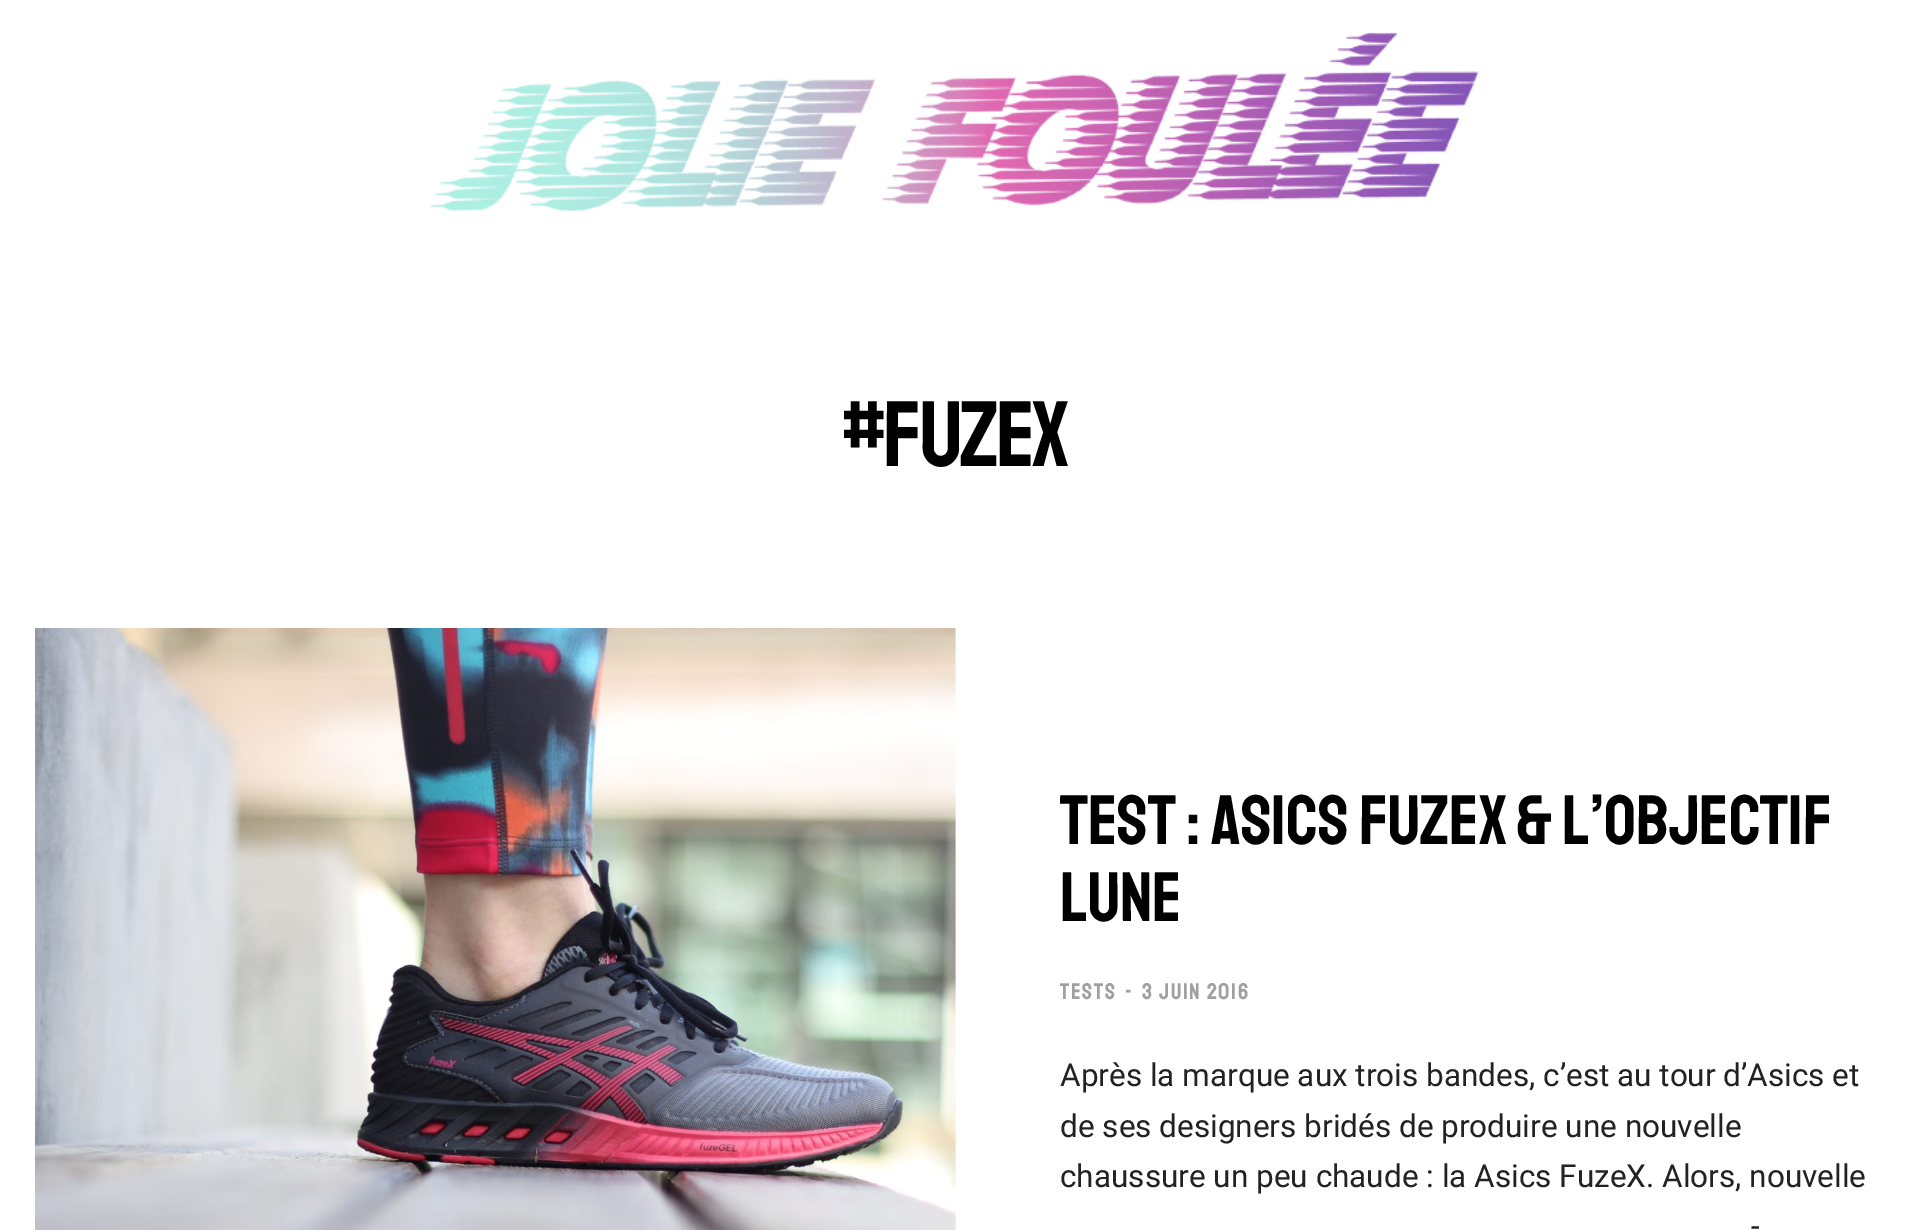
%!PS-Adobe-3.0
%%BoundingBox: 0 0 1908 1230
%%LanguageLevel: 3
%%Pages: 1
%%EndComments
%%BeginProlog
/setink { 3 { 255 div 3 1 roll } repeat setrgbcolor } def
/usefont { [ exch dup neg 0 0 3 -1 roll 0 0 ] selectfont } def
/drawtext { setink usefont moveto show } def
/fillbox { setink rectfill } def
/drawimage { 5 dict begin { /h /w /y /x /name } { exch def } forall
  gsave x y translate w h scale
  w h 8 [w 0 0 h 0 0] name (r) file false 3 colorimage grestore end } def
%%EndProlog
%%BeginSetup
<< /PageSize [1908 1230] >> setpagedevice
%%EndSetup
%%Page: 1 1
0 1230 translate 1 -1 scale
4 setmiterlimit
0 0 1908 1230 255 255 255 fillbox
(assets/img1.rgb) 430 32 1048 179 drawimage
/Staatliches-Regular 93 usefont
0 0 0 setink
842 466 moveto -2.75 0 (#FUZEX) ashow
(assets/img2.rgb) 35 628 921 602 drawimage
(TEST : ASICS FUZEX & L’OBJECTIF) 1060 844 /Staatliches-Regular 70 0 0 0 drawtext
(LUNE) 1060 921 /Staatliches-Regular 70 0 0 0 drawtext
/Staatliches-Regular 22.75 usefont
160 160 160 setink
1060 999 moveto 1.75 0 (TESTS) ashow
1125 999 moveto 1.75 0 (-) ashow
1142 999 moveto 1.75 0 (3 JUIN 2016) ashow
(Après la marque aux trois bandes, c’est au tour d’Asics et) 1060 1086 /Roboto-Regular 31.5 34 34 34 drawtext
(de ses designers bridés de produire une nouvelle) 1060 1137 /Roboto-Regular 31.5 34 34 34 drawtext
(chaussure un peu chaude : la Asics FuzeX. Alors, nouvelle) 1060 1187 /Roboto-Regular 31.5 34 34 34 drawtext
(-) 1751 1237 /Roboto-Regular 31.5 34 34 34 drawtext
showpage
%%EOF
